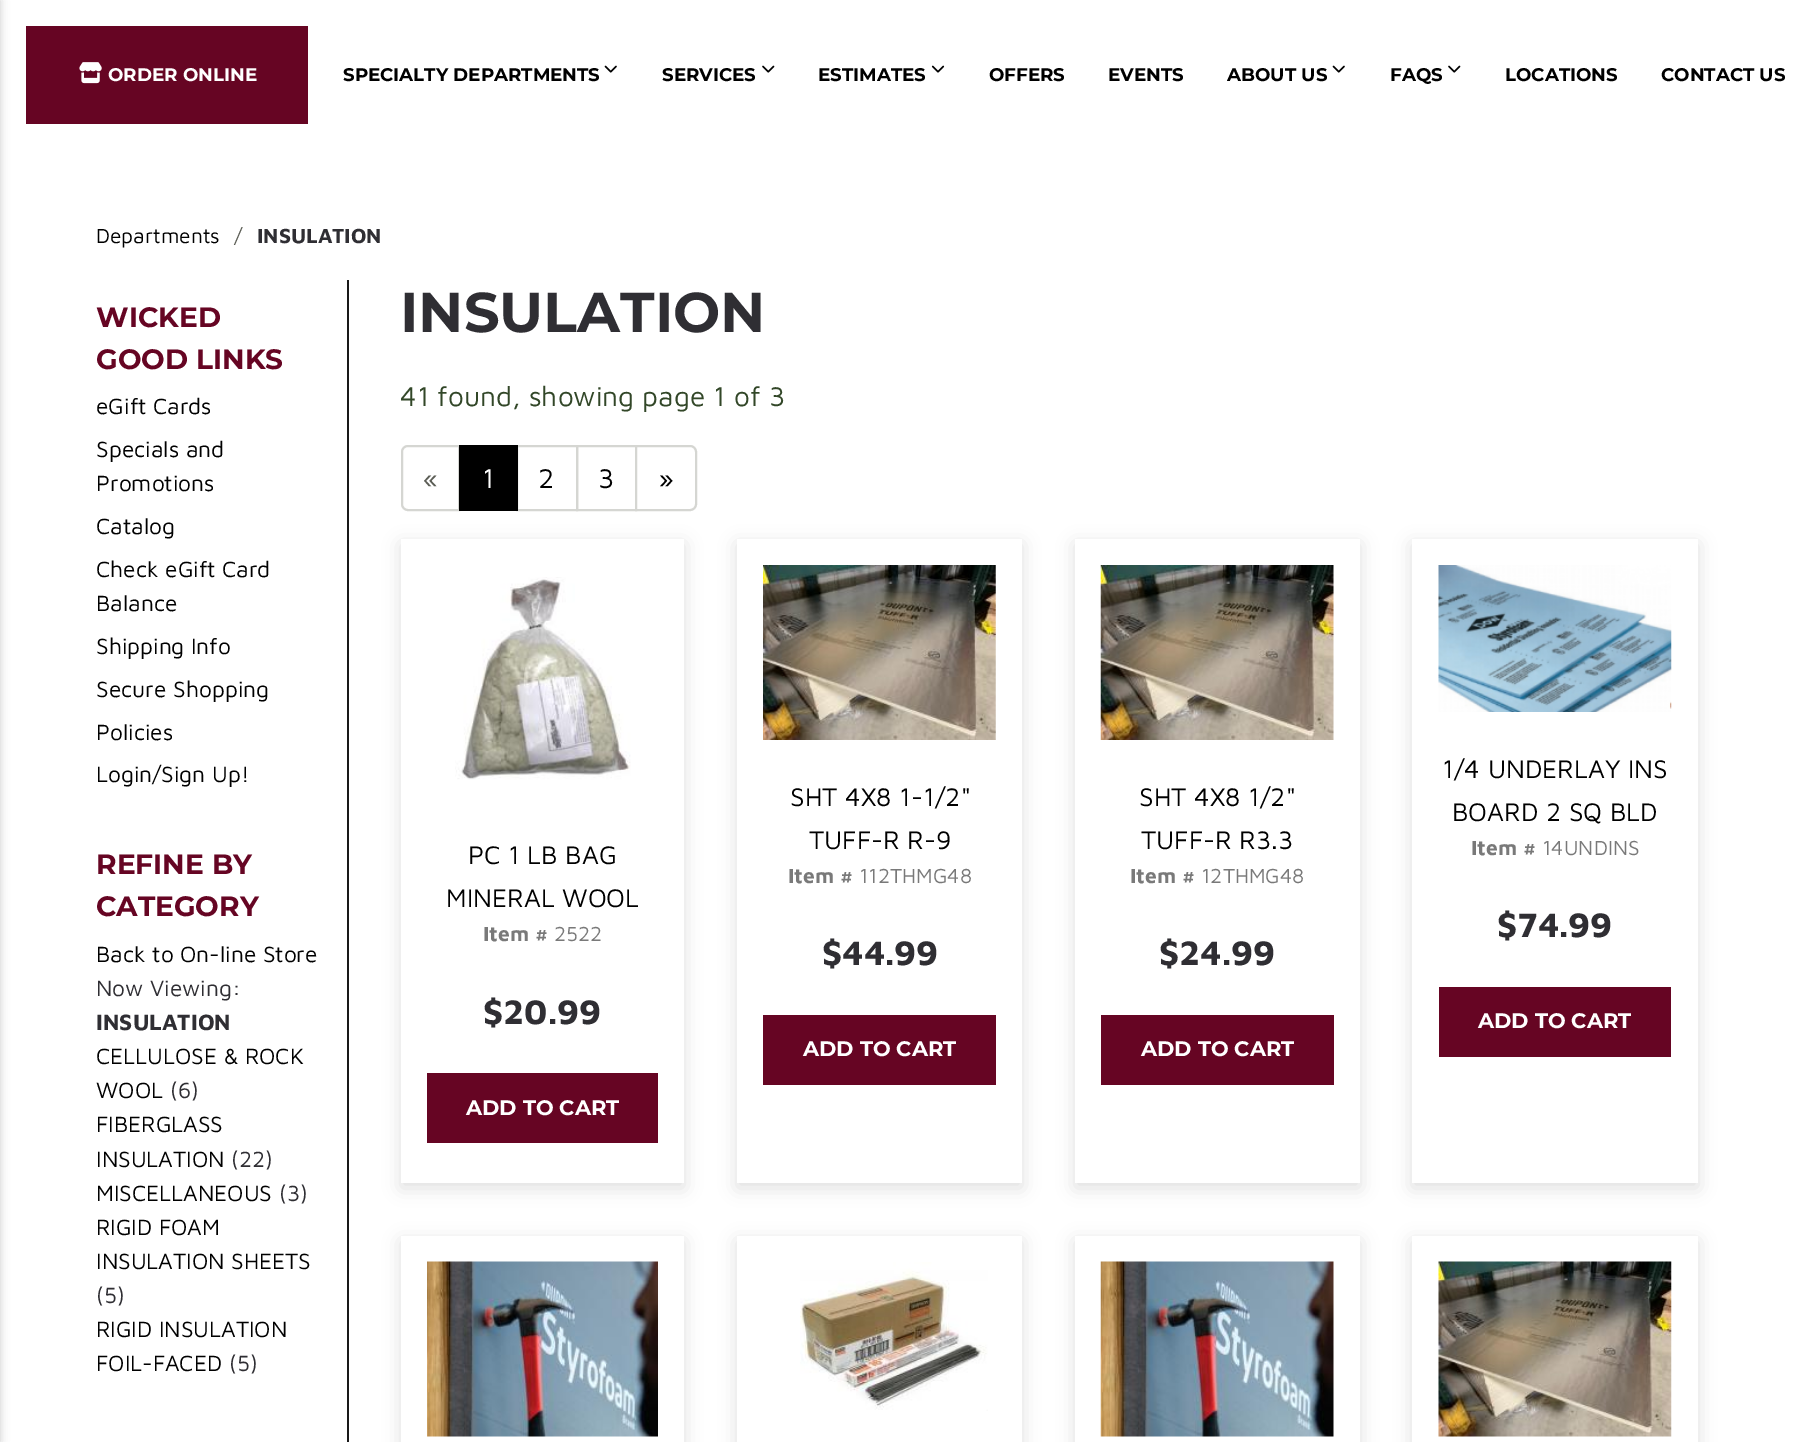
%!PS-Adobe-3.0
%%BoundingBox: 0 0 1819 1442
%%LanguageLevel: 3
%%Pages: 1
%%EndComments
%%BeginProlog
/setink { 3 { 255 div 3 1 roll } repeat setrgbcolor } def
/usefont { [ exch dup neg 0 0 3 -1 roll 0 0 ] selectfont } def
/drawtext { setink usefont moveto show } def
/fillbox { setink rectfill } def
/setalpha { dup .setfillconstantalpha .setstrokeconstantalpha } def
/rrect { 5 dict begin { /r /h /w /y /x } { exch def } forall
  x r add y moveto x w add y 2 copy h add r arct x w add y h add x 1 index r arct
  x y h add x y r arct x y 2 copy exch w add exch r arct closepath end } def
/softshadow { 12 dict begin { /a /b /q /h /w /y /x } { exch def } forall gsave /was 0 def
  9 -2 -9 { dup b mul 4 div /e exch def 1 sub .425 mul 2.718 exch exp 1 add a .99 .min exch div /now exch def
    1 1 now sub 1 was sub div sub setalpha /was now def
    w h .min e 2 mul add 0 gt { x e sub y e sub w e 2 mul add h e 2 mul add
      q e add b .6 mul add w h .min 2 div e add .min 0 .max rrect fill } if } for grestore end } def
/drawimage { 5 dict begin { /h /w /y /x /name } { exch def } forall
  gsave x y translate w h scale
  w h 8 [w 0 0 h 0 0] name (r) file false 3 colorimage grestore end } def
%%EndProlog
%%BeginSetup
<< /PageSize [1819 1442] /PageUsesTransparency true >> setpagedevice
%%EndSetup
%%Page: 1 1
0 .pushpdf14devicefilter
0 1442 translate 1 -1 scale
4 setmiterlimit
0 0 1819 1442 255 255 255 fillbox
0 0 0 setink
-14 0 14 1442 0 4.5 0.2 softshadow
26 26 282 98 102 5 35 fillbox
(assets/img1.rgb) 79 62 23 22 drawimage
(ORDER ONLINE) 108 81 /Montserrat-Bold 18.25 255 255 255 drawtext
(SPECIALTY DEPARTMENTS) 343 81 /Montserrat-Bold 18.25 0 0 0 drawtext
(assets/img2.rgb) 604 65 13 8 drawimage
(SERVICES) 662 81 /Montserrat-Bold 18.25 0 0 0 drawtext
(assets/img3.rgb) 762 65 13 8 drawimage
(ESTIMATES) 818 81 /Montserrat-Bold 18.25 0 0 0 drawtext
(assets/img4.rgb) 931 65 14 8 drawimage
(OFFERS) 989 81 /Montserrat-Bold 18.25 0 0 0 drawtext
(EVENTS) 1108 81 /Montserrat-Bold 18.25 0 0 0 drawtext
(ABOUT US) 1227 81 /Montserrat-Bold 18.25 0 0 0 drawtext
(assets/img2.rgb) 1332 65 13 8 drawimage
(FAQS) 1390 81 /Montserrat-Bold 18.25 0 0 0 drawtext
(assets/img3.rgb) 1448 65 13 8 drawimage
(LOCATIONS) 1505 81 /Montserrat-Bold 18.25 0 0 0 drawtext
(CONTACT US) 1661 81 /Montserrat-Bold 18.25 0 0 0 drawtext
(Departments) 96 243 /MavenPro-Regular 21 0 0 0 drawtext
(/) 234 243 /MavenPro-Regular 21 91 93 85 drawtext
(INSULATION) 257 243 /MavenPro-Bold 21 47 46 51 drawtext
(WICKED) 96 327 /Montserrat-Bold 28 102 5 35 drawtext
(GOOD LINKS) 96 369 /Montserrat-Bold 28 102 5 35 drawtext
(eGift Cards) 96 414 /MavenPro-Regular 22.75 0 0 0 drawtext
(Specials and) 96 457 /MavenPro-Regular 22.75 0 0 0 drawtext
(Promotions) 96 491 /MavenPro-Regular 22.75 0 0 0 drawtext
(Catalog) 96 534 /MavenPro-Regular 22.75 0 0 0 drawtext
(Check eGift Card) 96 577 /MavenPro-Regular 22.75 0 0 0 drawtext
(Balance) 96 611 /MavenPro-Regular 22.75 0 0 0 drawtext
(Shipping Info) 96 654 /MavenPro-Regular 22.75 0 0 0 drawtext
(Secure Shopping) 96 697 /MavenPro-Regular 22.75 0 0 0 drawtext
(Policies) 96 740 /MavenPro-Regular 22.75 0 0 0 drawtext
(Login/Sign Up!) 96 782 /MavenPro-Regular 22.75 0 0 0 drawtext
(REFINE BY) 96 874 /Montserrat-Bold 28 102 5 35 drawtext
(CATEGORY) 96 916 /Montserrat-Bold 28 102 5 35 drawtext
(Back to On-line Store) 96 962 /MavenPro-Regular 22.75 0 0 0 drawtext
(Now Viewing:) 96 996 /MavenPro-Regular 22.75 47 46 51 drawtext
(INSULATION) 96 1030 /MavenPro-Bold 22.75 47 46 51 drawtext
(CELLULOSE & ROCK) 96 1064 /MavenPro-Regular 22.75 0 0 0 drawtext
(WOOL) 96 1098 /MavenPro-Regular 22.75 0 0 0 drawtext
(\(6\)) 170 1098 /MavenPro-Regular 22.75 47 46 51 drawtext
(FIBERGLASS) 96 1132 /MavenPro-Regular 22.75 0 0 0 drawtext
(INSULATION) 96 1167 /MavenPro-Regular 22.75 0 0 0 drawtext
(\(22\)) 231 1167 /MavenPro-Regular 22.75 47 46 51 drawtext
(MISCELLANEOUS) 96 1201 /MavenPro-Regular 22.75 0 0 0 drawtext
(\(3\)) 279 1201 /MavenPro-Regular 22.75 47 46 51 drawtext
(RIGID FOAM) 96 1235 /MavenPro-Regular 22.75 0 0 0 drawtext
(INSULATION SHEETS) 96 1269 /MavenPro-Regular 22.75 0 0 0 drawtext
(\(5\)) 96 1303 /MavenPro-Regular 22.75 47 46 51 drawtext
(RIGID INSULATION) 96 1337 /MavenPro-Regular 22.75 0 0 0 drawtext
(FOIL-FACED) 96 1371 /MavenPro-Regular 22.75 0 0 0 drawtext
(\(5\)) 229 1371 /MavenPro-Regular 22.75 47 46 51 drawtext
347 280 2 1162 25 25 25 fillbox
(INSULATION) 400 332 /Montserrat-Bold 56 47 46 51 drawtext
(41 found, showing page 1 of 3) 400 406 /MavenPro-Regular 28 50 71 40 drawtext
213 214 210 setink
2 setlinewidth
408 446 moveto 459 446 lineto 459 510 lineto 408 510 lineto 404.5 510 402 507.5 402 504 curveto 402 452 lineto 402 448.5 404.5 446 408 446 curveto closepath stroke
(«) 423 488 /MavenPro-Regular 28 91 93 85 drawtext
213 214 210 setink
517 446 60 64 rectstroke
459 445 59 66 0 0 0 fillbox
(1) 482 488 /MavenPro-Regular 28 255 255 255 drawtext
(2) 538 488 /MavenPro-Regular 28 0 0 0 drawtext
213 214 210 setink
577 446 59 64 rectstroke
(3) 598 488 /MavenPro-Regular 28 0 0 0 drawtext
255 255 255 setink
636 446 moveto 690 446 lineto 693.5 446 696 448.5 696 452 curveto 696 504 lineto 696 507.5 693.5 510 690 510 curveto 636 510 lineto closepath gsave fill grestore
213 214 210 setink
stroke
(») 658 488 /MavenPro-Regular 28 0 0 0 drawtext
gsave
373 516 moveto 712 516 lineto 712 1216 lineto 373 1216 lineto closepath 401 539 moveto 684 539 lineto 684 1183 lineto 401 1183 lineto closepath eoclip newpath
401 544 283 644 0 9 0.12 softshadow
grestore
(assets/img5.rgb) 455 577 176 203 drawimage
(PC 1 LB BAG) 468 864 /MavenPro-Regular 26.25 0 0 0 drawtext
(MINERAL WOOL) 446 907 /MavenPro-Regular 26.25 0 0 0 drawtext
(Item #) 483 941 /MavenPro-Bold 21 121 121 121 drawtext
(2522) 554 941 /MavenPro-Regular 21 121 121 121 drawtext
($20.99) 483 1024 /MavenPro-Bold 35 47 46 51 drawtext
427 1073 231 70 102 5 35 fillbox
(ADD TO CART) 466 1115 /Montserrat-Bold 21 255 255 255 drawtext
gsave
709 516 moveto 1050 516 lineto 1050 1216 lineto 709 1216 lineto closepath 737 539 moveto 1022 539 lineto 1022 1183 lineto 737 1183 lineto closepath eoclip newpath
0 0 0 setink
737 544 285 644 0 9 0.12 softshadow
grestore
(assets/img6.rgb) 763 565 233 175 drawimage
(SHT 4X8 1-1/2") 790 806 /MavenPro-Regular 26.25 0 0 0 drawtext
(TUFF-R R-9) 809 849 /MavenPro-Regular 26.25 0 0 0 drawtext
(Item #) 788 883 /MavenPro-Bold 21 121 121 121 drawtext
(112THMG48) 859 883 /MavenPro-Regular 21 121 121 121 drawtext
($44.99) 822 965 /MavenPro-Bold 35 47 46 51 drawtext
763 1015 233 70 102 5 35 fillbox
(ADD TO CART) 803 1056 /Montserrat-Bold 21 255 255 255 drawtext
gsave
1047 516 moveto 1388 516 lineto 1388 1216 lineto 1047 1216 lineto closepath 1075 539 moveto 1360 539 lineto 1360 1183 lineto 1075 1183 lineto closepath eoclip newpath
0 0 0 setink
1075 544 285 644 0 9 0.12 softshadow
grestore
(assets/img7.rgb) 1100 565 234 175 drawimage
(SHT 4X8 1/2") 1139 806 /MavenPro-Regular 26.25 0 0 0 drawtext
(TUFF-R R3.3) 1141 849 /MavenPro-Regular 26.25 0 0 0 drawtext
(Item #) 1130 883 /MavenPro-Bold 21 121 121 121 drawtext
(12THMG48) 1201 883 /MavenPro-Regular 21 121 121 121 drawtext
($24.99) 1159 965 /MavenPro-Bold 35 47 46 51 drawtext
1101 1015 233 70 102 5 35 fillbox
(ADD TO CART) 1141 1056 /Montserrat-Bold 21 255 255 255 drawtext
gsave
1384 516 moveto 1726 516 lineto 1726 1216 lineto 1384 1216 lineto closepath 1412 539 moveto 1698 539 lineto 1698 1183 lineto 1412 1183 lineto closepath eoclip newpath
0 0 0 setink
1412 544 286 644 0 9 0.12 softshadow
grestore
(assets/img8.rgb) 1438 565 234 147 drawimage
(1/4 UNDERLAY INS) 1442 778 /MavenPro-Regular 26.25 0 0 0 drawtext
(BOARD 2 SQ BLD) 1452 821 /MavenPro-Regular 26.25 0 0 0 drawtext
(Item #) 1471 855 /MavenPro-Bold 21 121 121 121 drawtext
(14UNDINS) 1542 855 /MavenPro-Regular 21 121 121 121 drawtext
($74.99) 1497 937 /MavenPro-Bold 35 47 46 51 drawtext
1439 987 232 70 102 5 35 fillbox
(ADD TO CART) 1478 1028 /Montserrat-Bold 21 255 255 255 drawtext
gsave
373 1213 moveto 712 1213 lineto 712 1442 lineto 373 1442 lineto closepath 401 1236 moveto 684 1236 lineto 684 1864 lineto 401 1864 lineto closepath eoclip newpath
0 0 0 setink
401 1241 283 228 0 9 0.12 softshadow
grestore
(assets/img9.rgb) 427 1261 231 176 drawimage
gsave
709 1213 moveto 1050 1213 lineto 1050 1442 lineto 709 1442 lineto closepath 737 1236 moveto 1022 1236 lineto 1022 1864 lineto 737 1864 lineto closepath eoclip newpath
0 0 0 setink
737 1241 285 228 0 9 0.12 softshadow
grestore
(assets/img10.rgb) 800 1262 188 149 drawimage
gsave
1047 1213 moveto 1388 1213 lineto 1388 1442 lineto 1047 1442 lineto closepath 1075 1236 moveto 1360 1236 lineto 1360 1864 lineto 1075 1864 lineto closepath eoclip newpath
0 0 0 setink
1075 1241 285 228 0 9 0.12 softshadow
grestore
(assets/img11.rgb) 1100 1261 234 176 drawimage
gsave
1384 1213 moveto 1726 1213 lineto 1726 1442 lineto 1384 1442 lineto closepath 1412 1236 moveto 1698 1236 lineto 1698 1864 lineto 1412 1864 lineto closepath eoclip newpath
0 0 0 setink
1412 1241 286 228 0 9 0.12 softshadow
grestore
(assets/img12.rgb) 1438 1261 234 176 drawimage
.poppdf14devicefilter showpage
%%EOF
